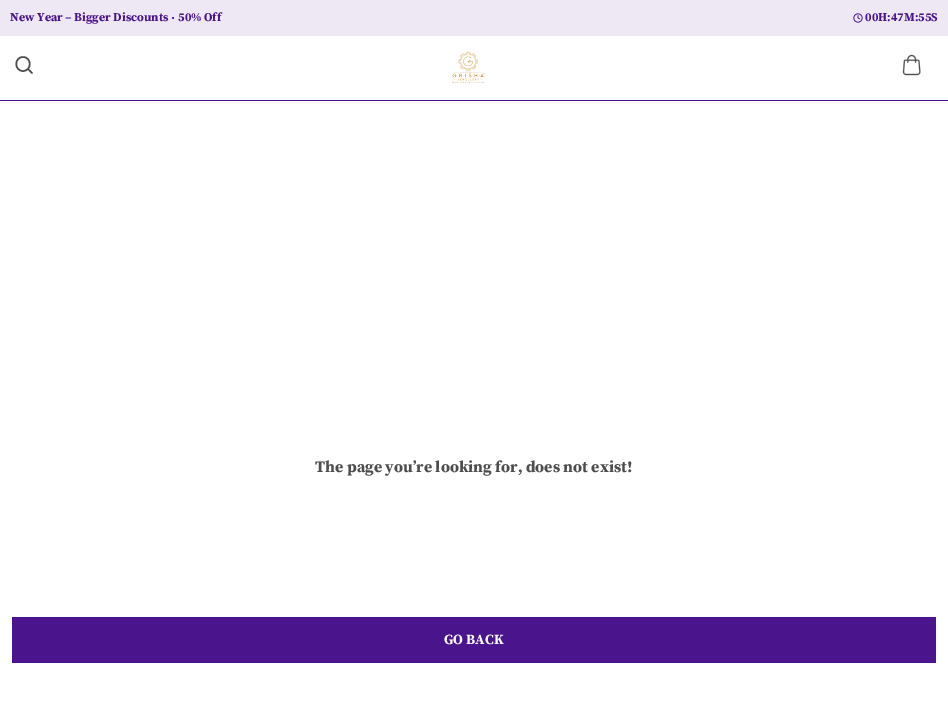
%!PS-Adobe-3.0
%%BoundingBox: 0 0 948 717
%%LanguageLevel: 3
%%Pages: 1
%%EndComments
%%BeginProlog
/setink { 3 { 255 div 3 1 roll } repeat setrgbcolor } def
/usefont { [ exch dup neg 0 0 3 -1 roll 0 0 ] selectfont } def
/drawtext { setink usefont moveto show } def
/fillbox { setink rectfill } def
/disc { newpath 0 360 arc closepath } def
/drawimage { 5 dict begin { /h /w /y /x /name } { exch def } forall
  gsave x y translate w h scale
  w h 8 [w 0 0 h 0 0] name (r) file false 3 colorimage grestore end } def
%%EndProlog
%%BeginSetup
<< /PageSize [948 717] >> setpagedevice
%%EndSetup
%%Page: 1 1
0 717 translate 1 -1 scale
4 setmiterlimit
0 0 948 717 255 255 255 fillbox
0 100 948 1 74 20 140 fillbox
0 0 948 36 237 232 244 fillbox
(New Year – Bigger Discounts) 10 21 /SourceSerifPro-Bold 12 74 20 140 drawtext
173 18 1 disc fill
(50% Off) 178 21 /SourceSerifPro-Bold 12 74 20 140 drawtext
(assets/img1.rgb) 853 13 10 10 drawimage
(00H:47M:55S) 865 21 /SourceSerifPro-Bold 12 74 20 140 drawtext
77 77 77 setink
1.5 setlinewidth
1 setlinecap
1 setlinejoin
23 71 moveto 32 71 32 57 23 57 curveto 14 57 14 71 23 71 curveto closepath 32 73 moveto 29 70 lineto stroke
(assets/img2.rgb) 452 51 34 32 drawimage
(assets/img3.rgb) 902 54 19 22 drawimage
(The page you’re looking for, does not exist!) 315 472 /SourceSerifPro-Bold 16 77 77 77 drawtext
12 617 924 46 74 20 140 fillbox
(GO BACK) 444 644 /SourceSerifPro-Bold 14 255 255 255 drawtext
showpage
%%EOF
